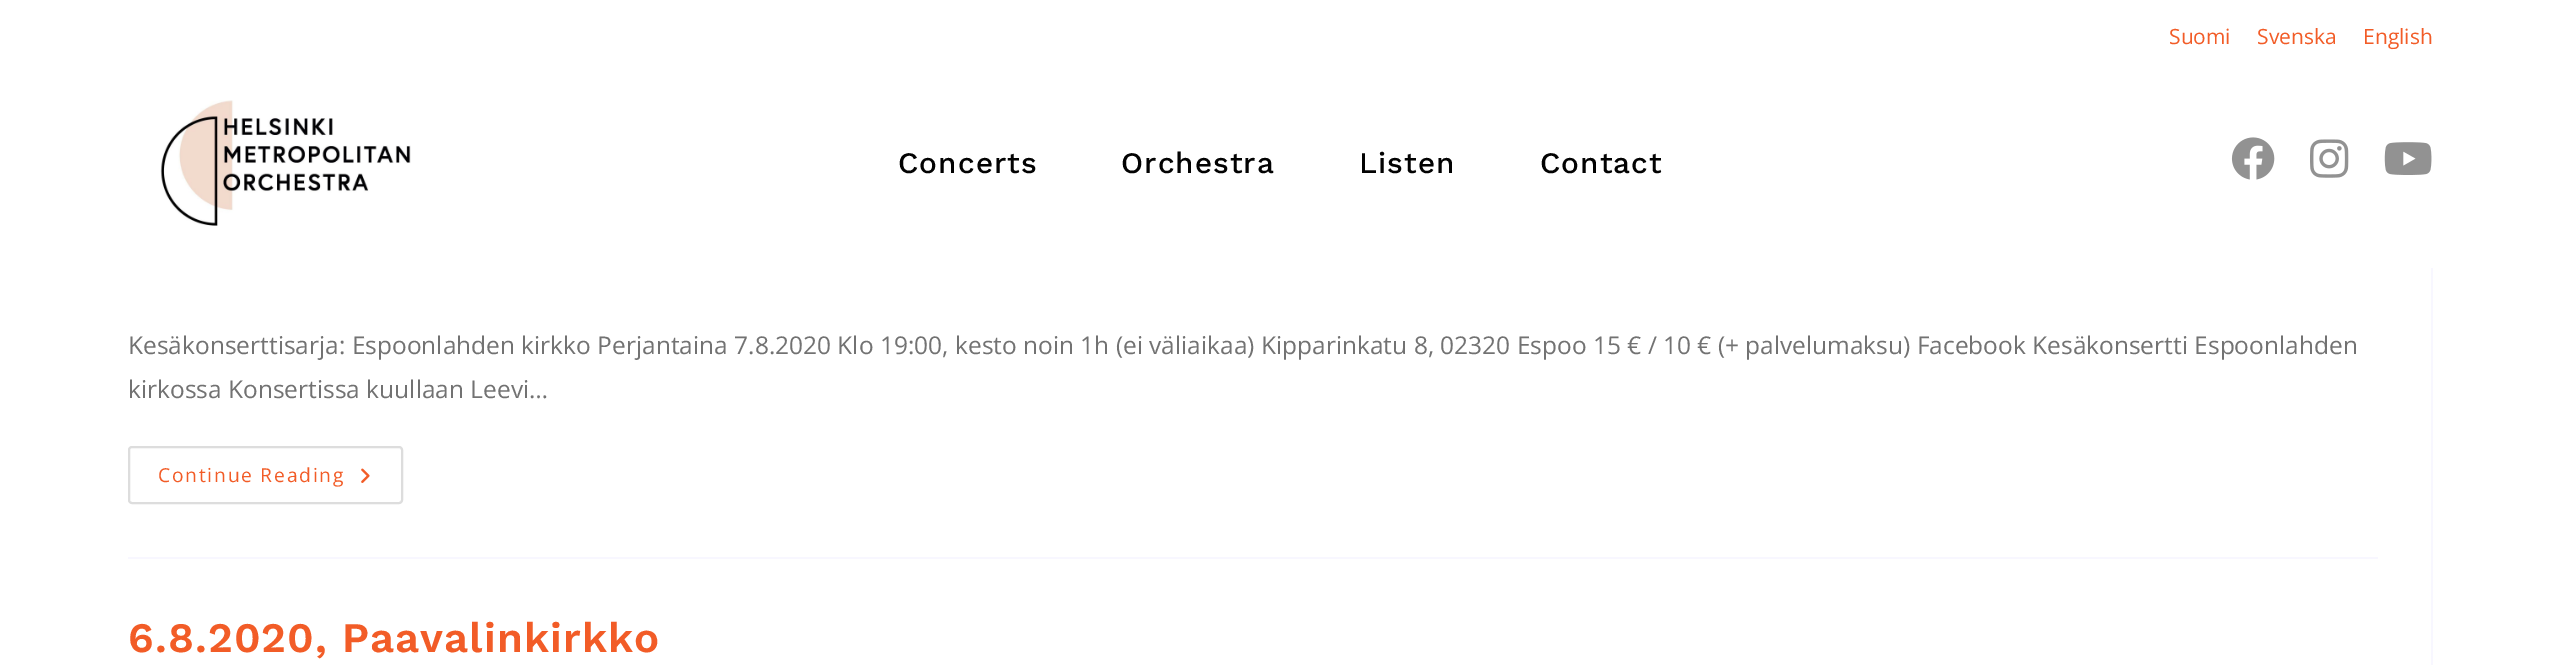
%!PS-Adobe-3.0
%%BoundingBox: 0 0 2559 665
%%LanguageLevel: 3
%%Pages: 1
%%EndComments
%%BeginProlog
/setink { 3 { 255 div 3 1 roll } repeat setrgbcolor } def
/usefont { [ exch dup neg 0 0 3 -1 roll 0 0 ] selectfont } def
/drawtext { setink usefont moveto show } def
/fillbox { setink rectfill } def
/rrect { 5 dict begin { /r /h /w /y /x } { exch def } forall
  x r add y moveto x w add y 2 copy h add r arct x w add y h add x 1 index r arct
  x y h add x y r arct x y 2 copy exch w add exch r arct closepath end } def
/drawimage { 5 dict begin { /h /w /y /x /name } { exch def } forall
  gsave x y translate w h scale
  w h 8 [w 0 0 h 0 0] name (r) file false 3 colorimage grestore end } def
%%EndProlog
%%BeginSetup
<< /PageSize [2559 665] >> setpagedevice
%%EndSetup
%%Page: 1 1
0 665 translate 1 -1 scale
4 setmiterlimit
0 0 2559 665 255 255 255 fillbox
(Suomi) 2169 44 /OpenSans-Regular 21 242 92 39 drawtext
(Svenska) 2257 44 /OpenSans-Regular 21 242 92 39 drawtext
(English) 2363 44 /OpenSans-Regular 21 242 92 39 drawtext
(assets/img1.rgb) 160 100 251 126 drawimage
/WorkSans-Medium 29.75 usefont
2 2 2 setink
898 173 moveto 1.05 0 (Concerts) ashow
1121 173 moveto 1.05 0 (Orchestra) ashow
1359 173 moveto 1.05 0 (Listen) ashow
1540 173 moveto 1.05 0 (Contact) ashow
(assets/img2.rgb) 2231 137 44 43 drawimage
(assets/img3.rgb) 2310 139 39 39 drawimage
(assets/img4.rgb) 2384 142 48 33 drawimage
2431 268 2 397 248 247 255 fillbox
128 557 2250 2 248 247 255 fillbox
(Kesäkonserttisarja: Espoonlahden kirkko Perjantaina 7.8.2020 Klo 19:00, kesto noin 1h \(ei väliaikaa\) Kipparinkatu 8, 02320 Espoo 15 € / 10 € \(+ palvelumaksu\) Facebook Kesäkonsertti Espoonlahden) 128 354 /OpenSans-Regular 24.5 114 114 114 drawtext
(kirkossa Konsertissa kuullaan Leevi…) 128 398 /OpenSans-Regular 24.5 114 114 114 drawtext
221 221 221 setink
2 setlinewidth
129 447 273 56 3 rrect stroke
/OpenSans-Regular 19.25 usefont
242 92 39 setink
158 482 moveto 1.75 0 (Continue Reading) ashow
(assets/img5.rgb) 361 468 9 15 drawimage
/WorkSans-SemiBold 42 usefont
128 652 moveto 1.05 0 (6.8.2020, Paavalinkirkko) ashow
showpage
%%EOF
